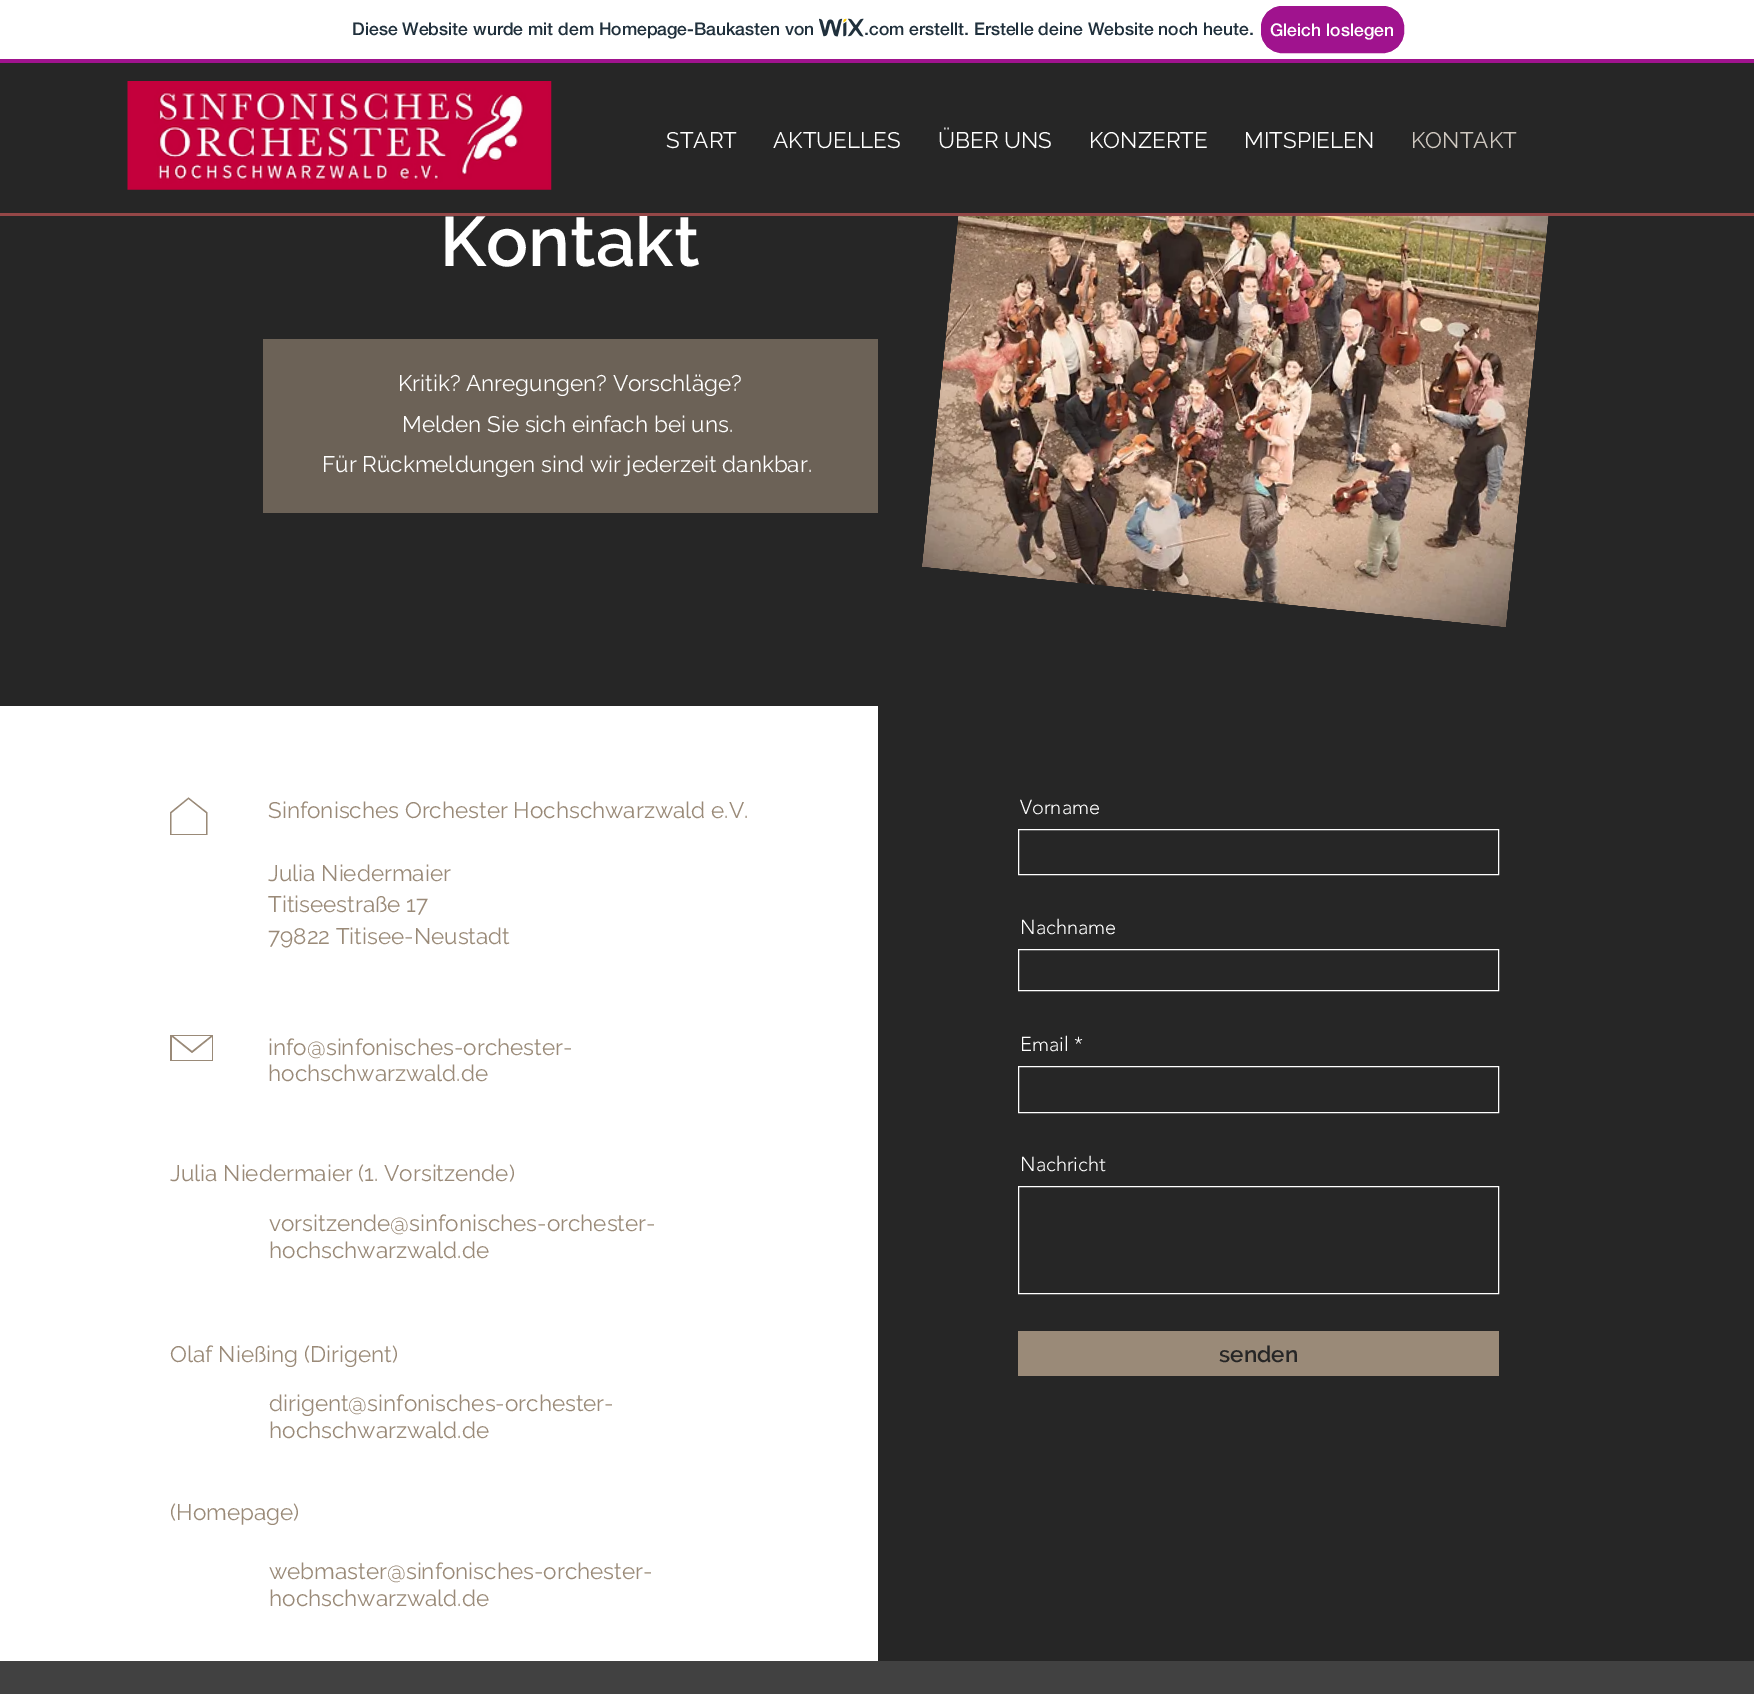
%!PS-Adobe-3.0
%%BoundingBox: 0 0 1754 1694
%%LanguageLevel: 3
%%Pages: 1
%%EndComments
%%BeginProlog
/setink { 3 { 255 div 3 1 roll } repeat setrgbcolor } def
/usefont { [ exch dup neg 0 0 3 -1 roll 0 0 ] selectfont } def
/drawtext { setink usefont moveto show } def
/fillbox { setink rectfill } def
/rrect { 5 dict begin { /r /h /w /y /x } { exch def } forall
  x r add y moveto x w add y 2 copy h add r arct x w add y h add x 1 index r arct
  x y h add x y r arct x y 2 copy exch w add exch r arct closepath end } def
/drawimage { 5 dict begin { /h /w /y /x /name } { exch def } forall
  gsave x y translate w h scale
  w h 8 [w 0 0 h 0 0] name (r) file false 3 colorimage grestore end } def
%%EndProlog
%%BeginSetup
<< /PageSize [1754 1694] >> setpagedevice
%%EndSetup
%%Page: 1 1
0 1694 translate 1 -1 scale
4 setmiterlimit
0 0 1754 1694 38 38 38 fillbox
0 0 1754 59 255 255 255 fillbox
0 59 1754 4 160 19 142 fillbox
(Diese Website wurde mit dem Homepage-Baukasten von) 352 35 /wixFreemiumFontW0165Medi-Medium 17.5 32 48 60 drawtext
(assets/img1.rgb) 819 18 45 19 drawimage
(.com erstellt. Erstelle deine Website noch heute.) 864 35 /wixFreemiumFontW0165Medi-Medium 17.5 32 48 60 drawtext
160 19 142 setink
1261.5 6.5 142 46 20.5 rrect gsave fill grestore
stroke
(Gleich loslegen) 1270 36 /wixFreemiumFontW0165Medi-Medium 17.5 255 255 255 drawtext
(assets/img2.rgb) 127 81 425 109 drawimage
(START) 666 148 /Raleway-Regular 22.5 255 255 255 drawtext
(AKTUELLES) 773 148 /Raleway-Regular 22.5 255 255 255 drawtext
(ÜBER UNS) 938 148 /Raleway-Regular 22.5 255 255 255 drawtext
(KONZERTE) 1089 148 /Raleway-Regular 22.5 255 255 255 drawtext
(MITSPIELEN) 1244 148 /Raleway-Regular 22.5 255 255 255 drawtext
(KONTAKT) 1411 148 /Raleway-Regular 22.5 207 200 192 drawtext
(Kontakt) 440 266 /Raleway-SemiBold 70 255 255 255 drawtext
0 213 1754 3 148 71 71 fillbox
(assets/img3.rgb) 922 216 627 411 drawimage
263 339 615 174 108 98 87 fillbox
(Kritik? Anregungen? Vorschläge?) 398 391 /Raleway-Regular 22.5 255 255 255 drawtext
(Melden Sie sich einfach bei uns.) 402 432 /Raleway-Regular 22.5 255 255 255 drawtext
(Für Rückmeldungen sind wir jederzeit dankbar.) 322 472 /Raleway-Regular 22.5 255 255 255 drawtext
0 706 878 955 255 255 255 fillbox
154 138 120 setink
207.5 835 moveto 170 835 lineto 170 812.5 lineto 188.5 797.5 lineto 207.5 812.5 lineto closepath 171.5 834 moveto 206 834 lineto 206 813 lineto 188.5 799 lineto 171.5 813 lineto closepath fill
(Sinfonisches Orchester Hochschwarzwald e.V.) 268 818 /Raleway-Regular 22.5 154 138 120 drawtext
(Julia Niedermaier) 268 881 /Raleway-Regular 22.5 154 138 120 drawtext
(Titiseestraße 17) 268 912 /Raleway-Regular 22.5 154 138 120 drawtext
(79822 Titisee-Neustadt) 268 944 /Raleway-Regular 22.5 154 138 120 drawtext
213 1061 moveto 170 1061 lineto 170 1035 lineto 213 1035 lineto closepath 172 1060 moveto 212 1060 lineto 212 1036 lineto 172 1036 lineto closepath fill
192 1053 moveto 171 1036 lineto 172 1035 lineto 192 1051 lineto 212 1035 lineto 213 1036 lineto closepath fill
(info@sinfonisches-orchester-) 268 1055 /Raleway-Regular 22.5 154 138 120 drawtext
(hochschwarzwald.de) 268 1081 /Raleway-Regular 22.5 154 138 120 drawtext
(Julia Niedermaier \(1. Vorsitzende\)) 170 1181 /Raleway-Regular 22.5 154 138 120 drawtext
(Olaf Nießing \(Dirigent\)) 170 1362 /Raleway-Regular 22.5 154 138 120 drawtext
(\(Homepage\)) 170 1520 /Raleway-Regular 22.5 154 138 120 drawtext
(vorsitzende@sinfonisches-orchester-) 269 1231 /Raleway-Regular 22.5 154 138 120 drawtext
(hochschwarzwald.de) 269 1258 /Raleway-Regular 22.5 154 138 120 drawtext
(dirigent@sinfonisches-orchester-) 269 1411 /Raleway-Regular 22.5 154 138 120 drawtext
(hochschwarzwald.de) 269 1438 /Raleway-Regular 22.5 154 138 120 drawtext
(webmaster@sinfonisches-orchester-) 269 1579 /Raleway-Regular 22.5 154 138 120 drawtext
(hochschwarzwald.de) 269 1606 /Raleway-Regular 22.5 154 138 120 drawtext
(Vorname) 1020 814 /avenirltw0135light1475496-Light 20 255 255 255 drawtext
1018.5 829.5 480 45 rectstroke
(Nachname) 1020 934 /avenirltw0135light1475496-Light 20 255 255 255 drawtext
1018.5 949.5 480 41 rectstroke
(Email *) 1020 1051 /avenirltw0135light1475496-Light 20 255 255 255 drawtext
1018.5 1066.5 480 46 rectstroke
(Nachricht) 1020 1171 /avenirltw0135light1475496-Light 20 255 255 255 drawtext
1018.5 1186.5 480 107 rectstroke
1018 1331 481 45 154 138 120 fillbox
(senden) 1219 1362 /Raleway-SemiBold 22.5 38 38 38 drawtext
0 1661 1754 33 65 65 65 fillbox
showpage
%%EOF
